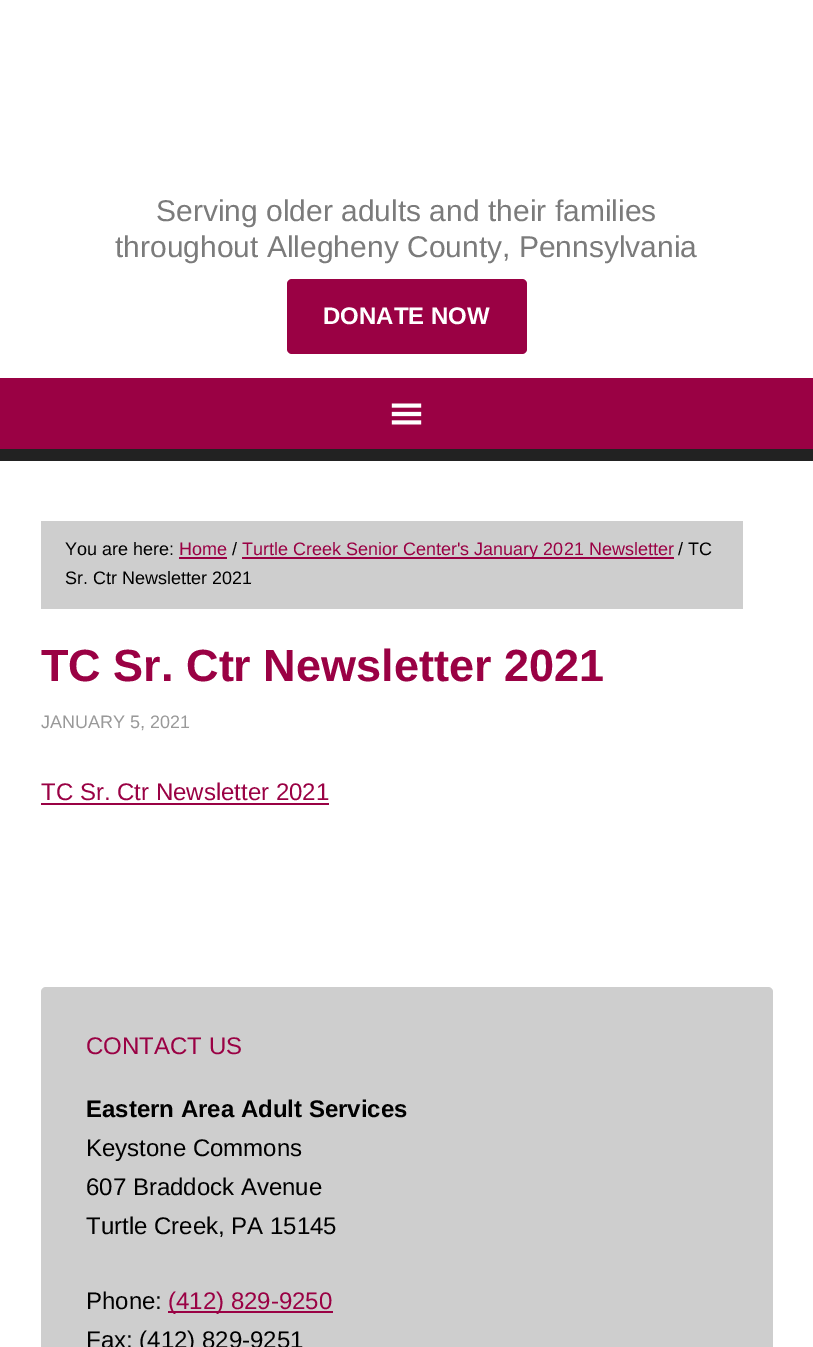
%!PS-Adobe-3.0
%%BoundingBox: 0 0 813 1347
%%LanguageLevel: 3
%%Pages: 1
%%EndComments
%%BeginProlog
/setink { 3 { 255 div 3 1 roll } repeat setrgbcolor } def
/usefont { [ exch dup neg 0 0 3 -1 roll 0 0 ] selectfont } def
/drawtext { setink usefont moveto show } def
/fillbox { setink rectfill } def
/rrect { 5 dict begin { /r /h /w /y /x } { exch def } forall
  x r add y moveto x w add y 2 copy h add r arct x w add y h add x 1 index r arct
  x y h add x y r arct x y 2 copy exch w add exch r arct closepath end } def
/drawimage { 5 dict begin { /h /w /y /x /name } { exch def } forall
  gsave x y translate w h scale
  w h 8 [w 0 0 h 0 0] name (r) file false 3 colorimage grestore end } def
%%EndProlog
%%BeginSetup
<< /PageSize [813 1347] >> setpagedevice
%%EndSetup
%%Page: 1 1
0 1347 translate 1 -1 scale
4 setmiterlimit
0 0 813 1347 255 255 255 fillbox
(Serving older adults and their families) 156 221 /LiberationSans-Regular 30 123 123 123 drawtext
(throughout Allegheny County, Pennsylvania) 115 257 /LiberationSans-Regular 30 123 123 123 drawtext
154 1 68 setink
287 279 240 75 5 rrect fill
(DONATE NOW) 323 324 /LiberationSans-Bold 24 255 255 255 drawtext
0 378 813 71 154 1 68 fillbox
0 449 813 12 34 34 34 fillbox
(assets/img1.rgb) 391 403 31 22 drawimage
41 521 702 88 206 206 206 fillbox
(You are here:) 65 555 /LiberationSans-Regular 18 0 0 0 drawtext
(Home) 179 555 /LiberationSans-Regular 18 154 1 68 drawtext
179 557 48 2 154 1 68 fillbox
(/) 232 555 /LiberationSans-Regular 18 0 0 0 drawtext
242 557 432 2 154 1 68 fillbox
(Turtle Creek Senior Center's January 2021 Newsletter) 242 555 /LiberationSans-Regular 18 154 1 68 drawtext
(/ TC) 678 555 /LiberationSans-Regular 18 0 0 0 drawtext
(Sr. Ctr Newsletter 2021) 65 584 /LiberationSans-Regular 18 0 0 0 drawtext
(TC Sr. Ctr Newsletter 2021) 41 681 /LiberationSans-Bold 45 154 1 68 drawtext
(JANUARY 5, 2021) 41 728 /LiberationSans-Regular 18 153 153 153 drawtext
(TC Sr. Ctr Newsletter 2021) 41 800 /LiberationSans-Regular 24 154 1 68 drawtext
41 803 288 2 154 1 68 fillbox
206 206 206 setink
41 987 732 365 5 rrect fill
(CONTACT US) 86 1054 /LiberationSans-Regular 24 154 1 68 drawtext
(Eastern Area Adult Services) 86 1117 /LiberationSans-Bold 24 0 0 0 drawtext
(Keystone Commons) 86 1156 /LiberationSans-Regular 24 0 0 0 drawtext
(607 Braddock Avenue) 86 1195 /LiberationSans-Regular 24 0 0 0 drawtext
(Turtle Creek, PA 15145) 86 1234 /LiberationSans-Regular 24 0 0 0 drawtext
(Phone:) 86 1309 /LiberationSans-Regular 24 0 0 0 drawtext
168 1311 165 2 154 1 68 fillbox
(\(412\) 829-9250) 168 1309 /LiberationSans-Regular 24 154 1 68 drawtext
(Fax: \(412\) 829-9251) 86 1348 /LiberationSans-Regular 24 0 0 0 drawtext
showpage
%%EOF
